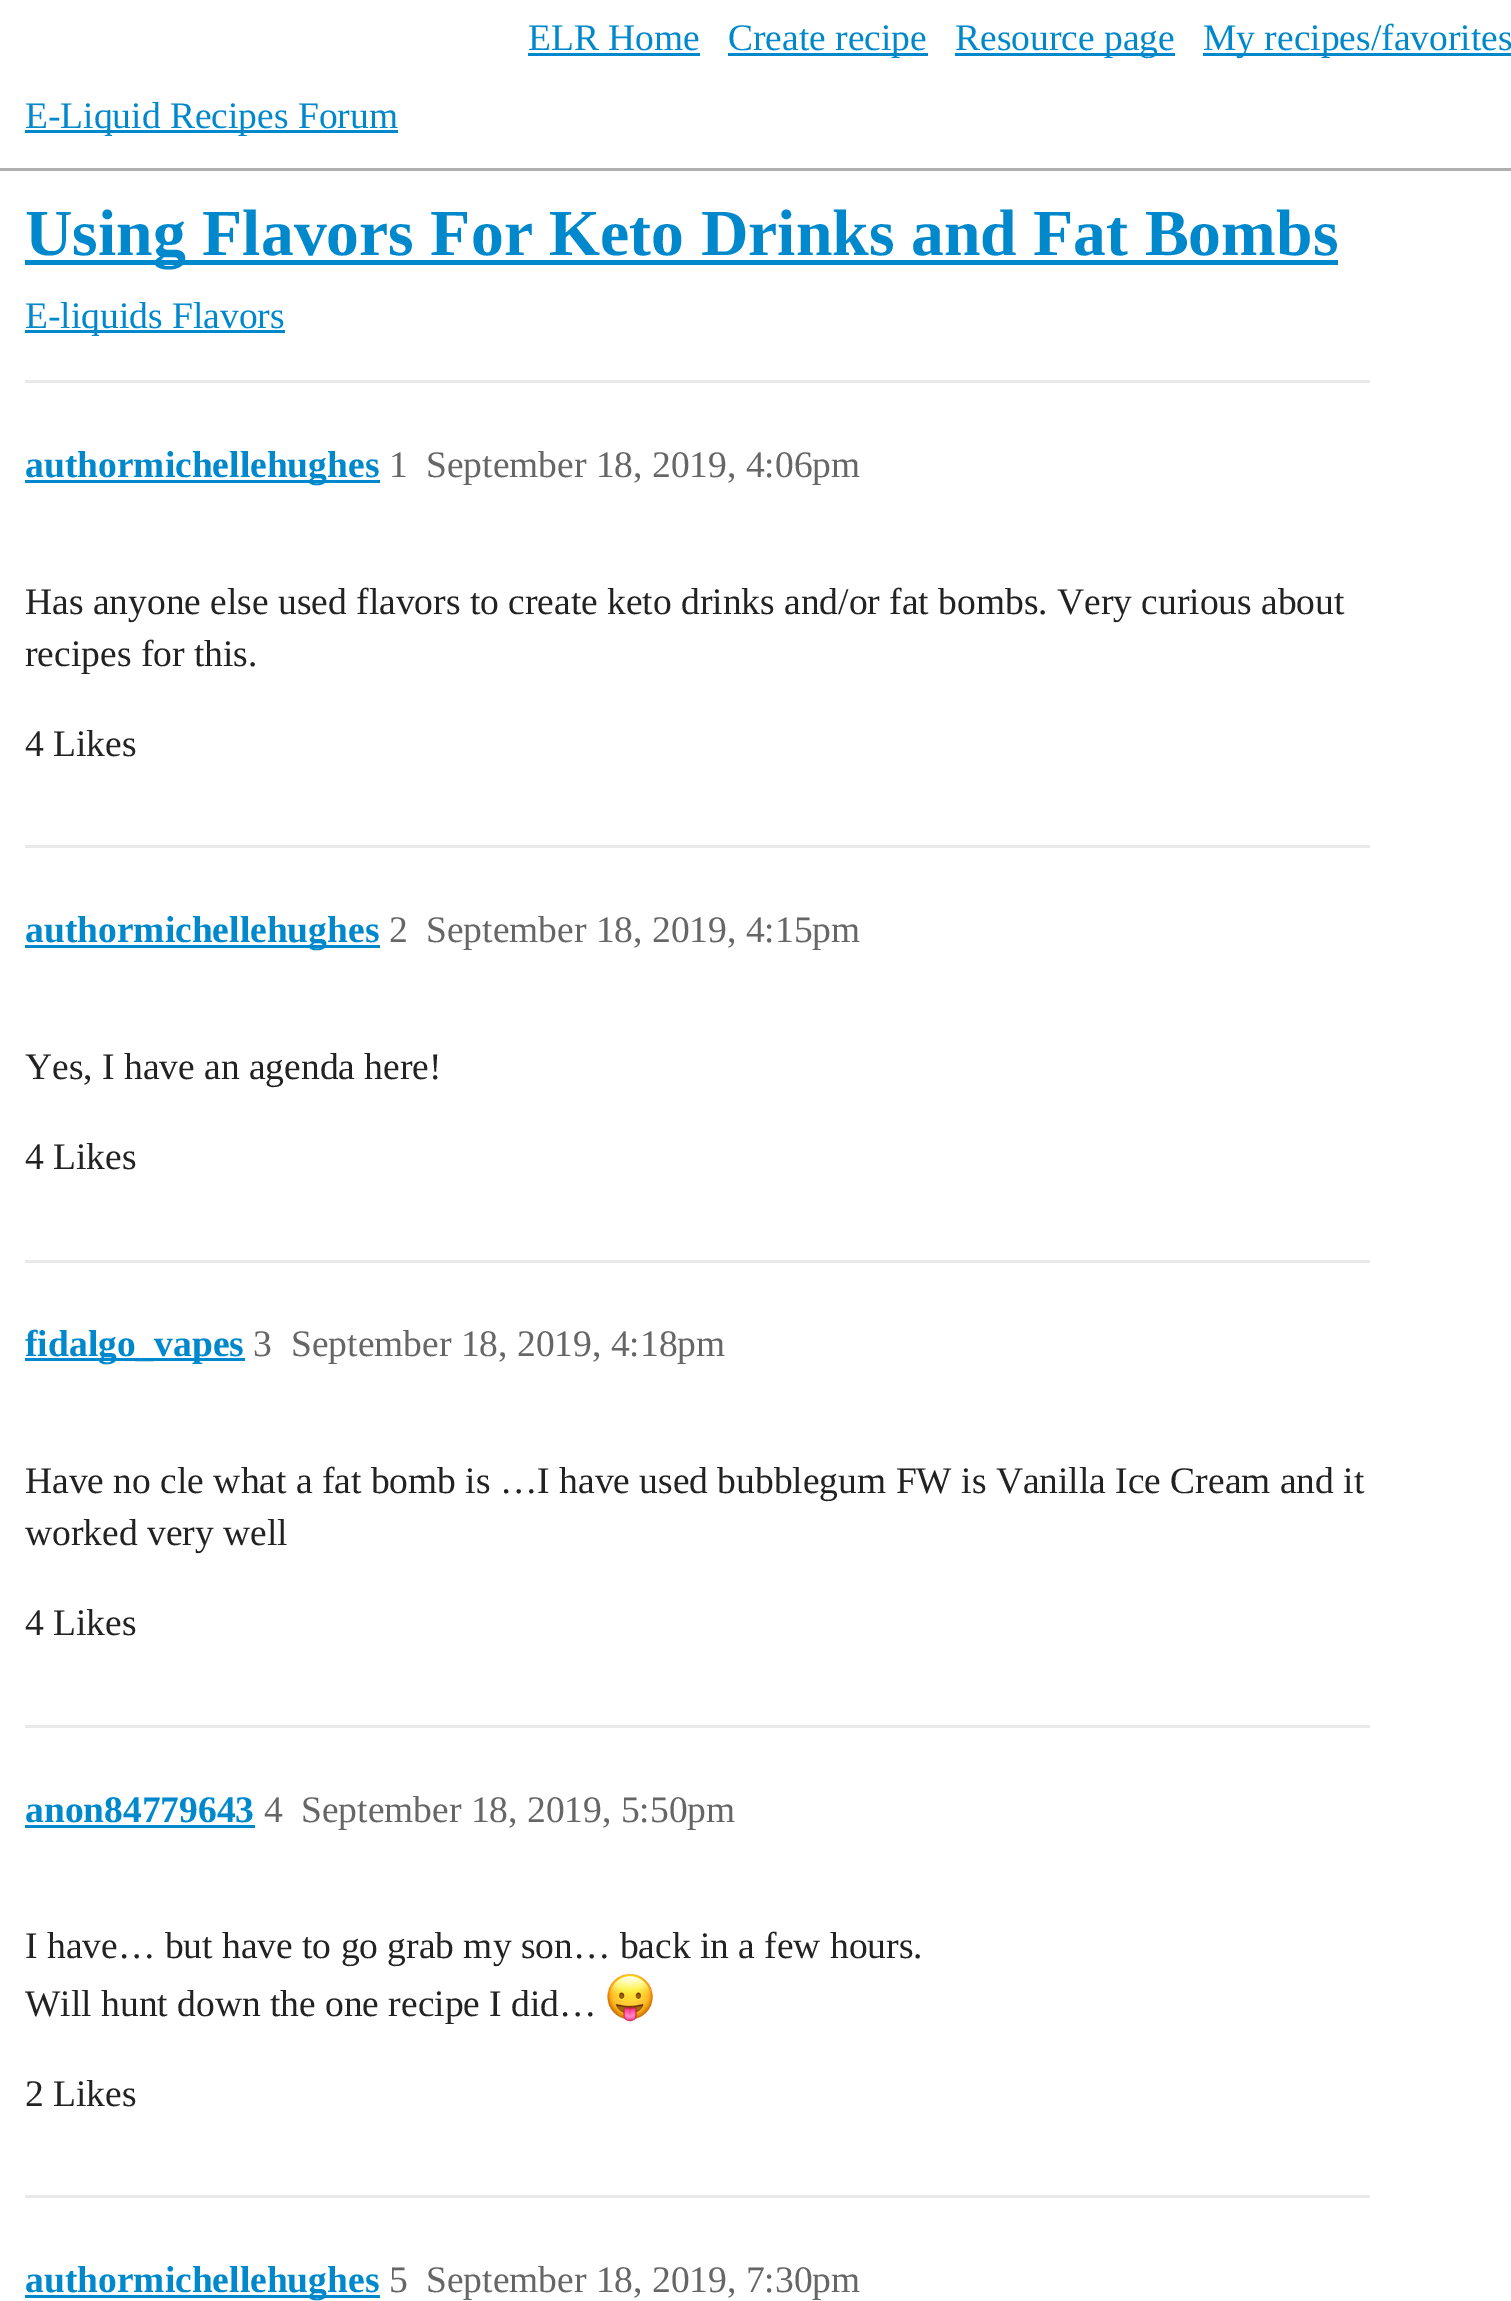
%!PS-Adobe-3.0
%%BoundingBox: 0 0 1511 2301
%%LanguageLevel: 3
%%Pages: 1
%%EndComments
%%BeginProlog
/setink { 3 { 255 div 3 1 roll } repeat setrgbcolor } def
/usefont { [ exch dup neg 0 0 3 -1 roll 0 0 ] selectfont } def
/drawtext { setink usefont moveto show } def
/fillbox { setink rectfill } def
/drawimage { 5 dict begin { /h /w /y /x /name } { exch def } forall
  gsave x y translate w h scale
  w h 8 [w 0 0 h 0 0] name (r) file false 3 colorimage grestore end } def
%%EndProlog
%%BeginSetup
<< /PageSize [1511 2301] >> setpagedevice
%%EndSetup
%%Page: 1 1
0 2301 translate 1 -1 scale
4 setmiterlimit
0 0 1511 2301 255 255 255 fillbox
(ELR Home) 528 50 /LiberationSerif-Regular 37.5 0 136 204 drawtext
528 53 172 3 0 136 204 fillbox
728 53 200 3 0 136 204 fillbox
(Create recipe) 728 50 /LiberationSerif-Regular 37.5 0 136 204 drawtext
955 53 220 3 0 136 204 fillbox
(Resource page) 955 50 /LiberationSerif-Regular 37.5 0 136 204 drawtext
1203 53 308 3 0 136 204 fillbox
(My recipes/favorites) 1203 50 /LiberationSerif-Regular 37.5 0 136 204 drawtext
0 168 1511 3 175 175 175 fillbox
25 130 373 3 0 136 204 fillbox
(E-Liquid Recipes Forum) 25 128 /LiberationSerif-Regular 37.5 0 136 204 drawtext
25 260 1313 5 0 136 204 fillbox
(Using Flavors For Keto Drinks and Fat Bombs) 25 255 /LiberationSerif-Bold 65.75 0 136 204 drawtext
25 330 260 3 0 136 204 fillbox
(E-liquids Flavors) 25 328 /LiberationSerif-Regular 37.5 0 136 204 drawtext
25 380 1345 3 233 233 233 fillbox
25 480 355 3 0 136 204 fillbox
(authormichellehughes) 25 477 /LiberationSerif-Bold 37.5 0 136 204 drawtext
(1) 389 477 /LiberationSerif-Regular 37.5 102 102 102 drawtext
(September 18, 2019, 4:06pm) 426 477 /LiberationSerif-Regular 37.5 102 102 102 drawtext
(Has anyone else used flavors to create keto drinks and/or fat bombs.) 25 614 /LiberationSerif-Regular 37.5 34 34 34 drawtext
(Very curious about) 1057 614 /LiberationSerif-Regular 37.5 34 34 34 drawtext
(recipes for this.) 25 666 /LiberationSerif-Regular 37.5 34 34 34 drawtext
(4 Likes) 25 756 /LiberationSerif-Regular 37.5 34 34 34 drawtext
25 845 1345 3 233 233 233 fillbox
25 945 355 3 0 136 204 fillbox
(authormichellehughes) 25 942 /LiberationSerif-Bold 37.5 0 136 204 drawtext
(2) 389 942 /LiberationSerif-Regular 37.5 102 102 102 drawtext
(September 18, 2019, 4:15pm) 426 942 /LiberationSerif-Regular 37.5 102 102 102 drawtext
(Yes, I have an agenda here!) 25 1079 /LiberationSerif-Regular 37.5 34 34 34 drawtext
(4 Likes) 25 1169 /LiberationSerif-Regular 37.5 34 34 34 drawtext
25 1260 1345 3 233 233 233 fillbox
25 1358 220 3 0 136 204 fillbox
(fidalgo_vapes) 25 1356 /LiberationSerif-Bold 37.5 0 136 204 drawtext
(3) 253 1356 /LiberationSerif-Regular 37.5 102 102 102 drawtext
(September 18, 2019, 4:18pm) 291 1356 /LiberationSerif-Regular 37.5 102 102 102 drawtext
(Have no cle what a fat bomb is …I have used bubblegum FW is Vanilla Ice Cream and it) 25 1493 /LiberationSerif-Regular 37.5 34 34 34 drawtext
(worked very well) 25 1545 /LiberationSerif-Regular 37.5 34 34 34 drawtext
(4 Likes) 25 1635 /LiberationSerif-Regular 37.5 34 34 34 drawtext
25 1725 1345 3 233 233 233 fillbox
(anon84779643) 25 1822 /LiberationSerif-Bold 37.5 0 136 204 drawtext
25 1825 230 3 0 136 204 fillbox
(4) 264 1822 /LiberationSerif-Regular 37.5 102 102 102 drawtext
(September 18, 2019, 5:50pm) 301 1822 /LiberationSerif-Regular 37.5 102 102 102 drawtext
(I have… but have to go grab my son… back in a few hours.) 25 1958 /LiberationSerif-Regular 37.5 34 34 34 drawtext
(Will hunt down the one recipe I did…) 25 2016 /LiberationSerif-Regular 37.5 34 34 34 drawtext
(assets/img1.rgb) 607 1973 46 49 drawimage
(2 Likes) 25 2106 /LiberationSerif-Regular 37.5 34 34 34 drawtext
25 2195 1345 3 233 233 233 fillbox
25 2295 355 3 0 136 204 fillbox
(authormichellehughes) 25 2292 /LiberationSerif-Bold 37.5 0 136 204 drawtext
(5) 389 2292 /LiberationSerif-Regular 37.5 102 102 102 drawtext
(September 18, 2019, 7:30pm) 426 2292 /LiberationSerif-Regular 37.5 102 102 102 drawtext
showpage
%%EOF
